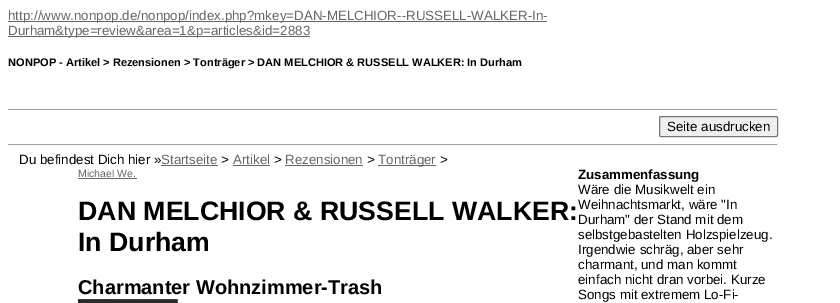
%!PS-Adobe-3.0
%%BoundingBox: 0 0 840 303
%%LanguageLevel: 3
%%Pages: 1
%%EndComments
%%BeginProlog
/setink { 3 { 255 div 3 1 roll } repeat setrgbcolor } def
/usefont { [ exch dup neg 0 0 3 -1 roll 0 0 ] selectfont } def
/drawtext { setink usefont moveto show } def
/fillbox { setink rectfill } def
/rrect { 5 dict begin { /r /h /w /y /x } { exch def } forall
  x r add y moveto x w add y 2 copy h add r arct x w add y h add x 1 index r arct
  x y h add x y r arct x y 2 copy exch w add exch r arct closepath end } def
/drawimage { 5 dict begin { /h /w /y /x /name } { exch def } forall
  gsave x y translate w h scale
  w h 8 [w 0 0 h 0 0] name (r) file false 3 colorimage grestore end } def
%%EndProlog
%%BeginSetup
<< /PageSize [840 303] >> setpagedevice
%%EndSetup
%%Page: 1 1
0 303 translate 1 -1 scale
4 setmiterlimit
0 0 840 303 255 255 255 fillbox
8 21 539 1 102 102 102 fillbox
(http://www.nonpop.de/nonpop/index.php?mkey=DAN-MELCHIOR--RUSSELL-WALKER-In-) 8 20 /LiberationSans-Regular 13.35 102 102 102 drawtext
8 36 302 1 102 102 102 fillbox
(Durham&type=review&area=1&p=articles&id=2883) 8 35 /LiberationSans-Regular 13.35 102 102 102 drawtext
(NONPOP - Artikel > Rezensionen > Tonträger > DAN MELCHIOR & RUSSELL WALKER: In Durham) 8 66 /LiberationSans-Bold 11.05 0 0 0 drawtext
8 109 770 1 159 159 159 fillbox
777 109 1 1 238 238 238 fillbox
239 239 239 setink
659.5 116.5 118 20 1.5 rrect gsave fill grestore
118 118 118 setink
stroke
(Seite ausdrucken) 667 131 /LiberationSans-Regular 13.35 0 0 0 drawtext
8 144 770 1 159 159 159 fillbox
777 144 1 1 238 238 238 fillbox
(Du befindest Dich hier ») 19 164 /LiberationSans-Regular 13.35 0 0 0 drawtext
(Startseite) 161 164 /LiberationSans-Regular 13.35 102 102 102 drawtext
161 165 57 1 102 102 102 fillbox
(>) 221 164 /LiberationSans-Regular 13.35 0 0 0 drawtext
(Artikel) 233 164 /LiberationSans-Regular 13.35 102 102 102 drawtext
233 165 37 1 102 102 102 fillbox
(>) 274 164 /LiberationSans-Regular 13.35 0 0 0 drawtext
(Rezensionen) 285 164 /LiberationSans-Regular 13.35 102 102 102 drawtext
285 165 78 1 102 102 102 fillbox
(>) 367 164 /LiberationSans-Regular 13.35 0 0 0 drawtext
378 165 58 1 102 102 102 fillbox
(Tonträger) 378 164 /LiberationSans-Regular 13.35 102 102 102 drawtext
(>) 440 164 /LiberationSans-Regular 13.35 0 0 0 drawtext
(Michael We.) 78 177 /LiberationSans-Regular 10.5 102 102 102 drawtext
78 178 59 1 102 102 102 fillbox
(DAN MELCHIOR & RUSSELL WALKER:) 78 220 /LiberationSans-Bold 26.7 0 0 0 drawtext
(In Durham) 78 251 /LiberationSans-Bold 26.7 0 0 0 drawtext
(Charmanter Wohnzimmer-Trash) 78 294 /LiberationSans-Bold 20 0 0 0 drawtext
(assets/img1.rgb) 78 299 100 4 drawimage
(Zusammenfassung) 578 179 /LiberationSans-Bold 13.35 0 0 0 drawtext
(Wäre die Musikwelt ein) 578 194 /LiberationSans-Regular 13.35 0 0 0 drawtext
(Weihnachtsmarkt, wäre "In) 578 209 /LiberationSans-Regular 13.35 0 0 0 drawtext
(Durham" der Stand mit dem) 578 224 /LiberationSans-Regular 13.35 0 0 0 drawtext
(selbstgebastelten Holzspielzeug.) 578 239 /LiberationSans-Regular 13.35 0 0 0 drawtext
(Irgendwie schräg, aber sehr) 578 254 /LiberationSans-Regular 13.35 0 0 0 drawtext
(charmant, und man kommt) 578 269 /LiberationSans-Regular 13.35 0 0 0 drawtext
(einfach nicht dran vorbei. Kurze) 578 284 /LiberationSans-Regular 13.35 0 0 0 drawtext
(Songs mit extremem Lo-Fi-) 578 299 /LiberationSans-Regular 13.35 0 0 0 drawtext
showpage
%%EOF
